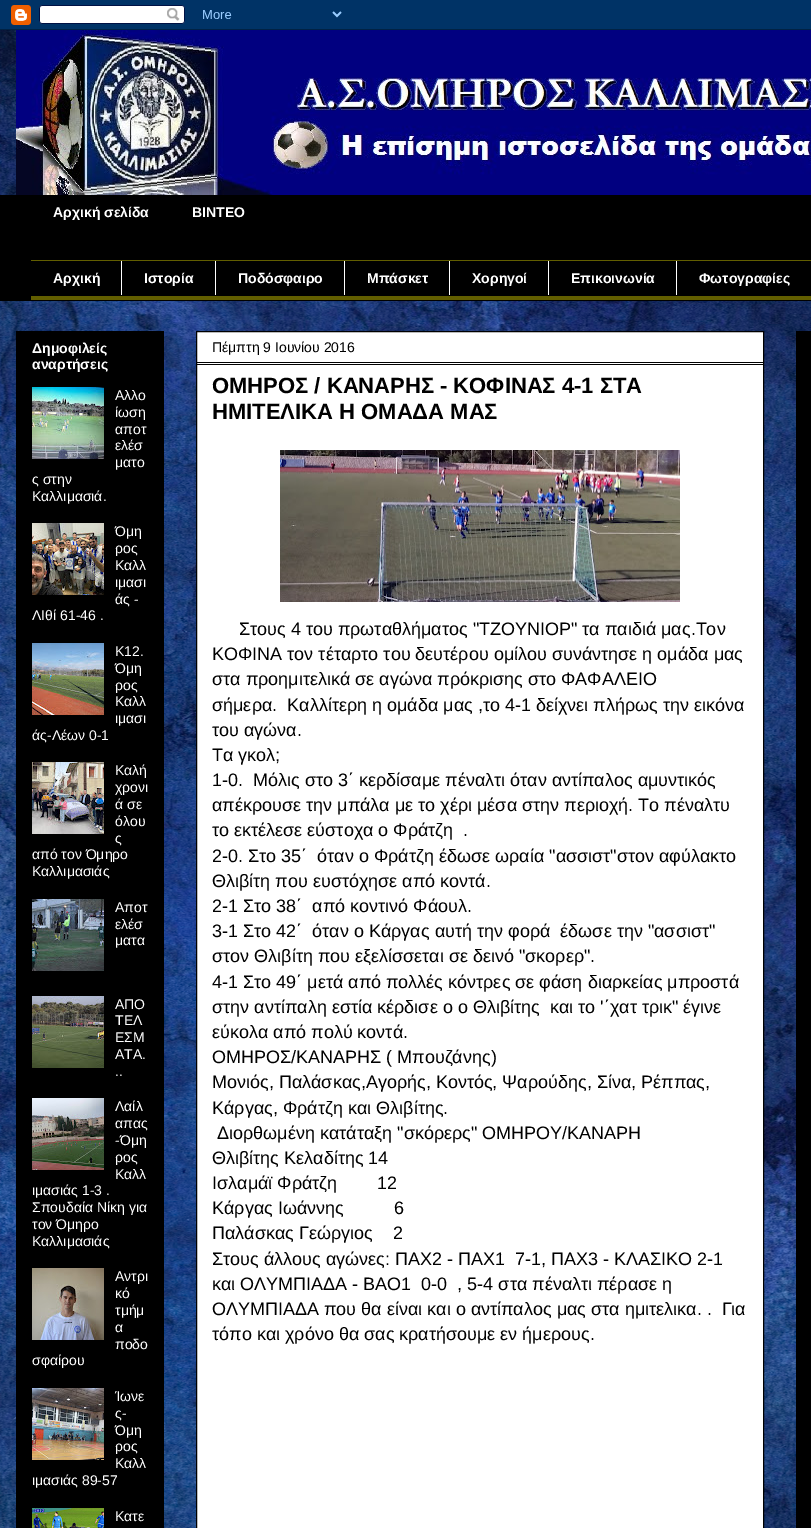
%!PS-Adobe-3.0
%%BoundingBox: 0 0 811 1528
%%LanguageLevel: 3
%%Pages: 1
%%EndComments
%%BeginProlog
/setink { 3 { 255 div 3 1 roll } repeat setrgbcolor } def
/usefont { [ exch dup neg 0 0 3 -1 roll 0 0 ] selectfont } def
/drawtext { setink usefont moveto show } def
/fillbox { setink rectfill } def
/drawimage { 5 dict begin { /h /w /y /x /name } { exch def } forall
  gsave x y translate w h scale
  w h 8 [w 0 0 h 0 0] name (r) file false 3 colorimage grestore end } def
%%EndProlog
%%BeginSetup
<< /PageSize [811 1528] >> setpagedevice
%%EndSetup
%%Page: 1 1
0 1528 translate 1 -1 scale
4 setmiterlimit
0 0 811 1528 255 255 255 fillbox
(assets/img1.rgb) 0 30 811 1498 drawimage
(assets/img2.rgb) 0 0 811 30 drawimage
(assets/img3.rgb) 16 30 795 165 drawimage
0 195 811 106 0 0 0 fillbox
(Αρχική σελίδα) 53 217 /LiberationSans-Bold 14 255 255 255 drawtext
(ΒΙΝΤΕΟ) 192 217 /LiberationSans-Bold 14 255 255 255 drawtext
31 260 780 1 98 94 0 fillbox
31 296 780 4 98 94 0 fillbox
121 261 1 35 255 255 255 fillbox
121 295 1 1 0 0 0 fillbox
(Αρχική) 53 283 /LiberationSans-Bold 14 255 255 255 drawtext
215 261 1 35 255 255 255 fillbox
215 295 1 1 0 0 0 fillbox
(Ιστορία) 144 283 /LiberationSans-Bold 14 255 255 255 drawtext
344 261 1 35 255 255 255 fillbox
344 295 1 1 0 0 0 fillbox
(Ποδόσφαιρο) 238 283 /LiberationSans-Bold 14 255 255 255 drawtext
449 261 1 35 255 255 255 fillbox
449 295 1 1 0 0 0 fillbox
(Μπάσκετ) 367 283 /LiberationSans-Bold 14 255 255 255 drawtext
548 261 1 35 255 255 255 fillbox
548 295 1 1 0 0 0 fillbox
(Χορηγοί) 472 283 /LiberationSans-Bold 14 255 255 255 drawtext
676 261 1 35 255 255 255 fillbox
676 295 1 1 0 0 0 fillbox
(Επικοινωνία) 571 283 /LiberationSans-Bold 14 255 255 255 drawtext
(Φωτογραφίες) 699 283 /LiberationSans-Bold 14 255 255 255 drawtext
16 331 148 1197 0 0 0 fillbox
(Δημοφιλείς) 32 353 /LiberationSans-Bold 14 255 255 255 drawtext
(αναρτήσεις) 32 369 /LiberationSans-Bold 14 255 255 255 drawtext
(assets/img4.rgb) 32 387 72 72 drawimage
(Αλλο) 115 400 /LiberationSans-Regular 14 255 255 255 drawtext
(ίωση) 115 417 /LiberationSans-Regular 14 255 255 255 drawtext
(αποτ) 115 434 /LiberationSans-Regular 14 255 255 255 drawtext
(ελέσ) 115 450 /LiberationSans-Regular 14 255 255 255 drawtext
(ματο) 115 467 /LiberationSans-Regular 14 255 255 255 drawtext
(ς στην) 32 484 /LiberationSans-Regular 14 255 255 255 drawtext
(Καλλιμασιά.) 32 501 /LiberationSans-Regular 14 255 255 255 drawtext
(assets/img5.rgb) 32 523 72 72 drawimage
(Όμη) 115 536 /LiberationSans-Regular 14 255 255 255 drawtext
(ρος) 115 553 /LiberationSans-Regular 14 255 255 255 drawtext
(Καλλ) 115 570 /LiberationSans-Regular 14 255 255 255 drawtext
(ιμασι) 115 587 /LiberationSans-Regular 14 255 255 255 drawtext
(άς -) 115 604 /LiberationSans-Regular 14 255 255 255 drawtext
(ΛΙθί 61-46 .) 32 620 /LiberationSans-Regular 14 255 255 255 drawtext
(assets/img6.rgb) 32 643 72 72 drawimage
(Κ12.) 115 656 /LiberationSans-Regular 14 255 255 255 drawtext
(Όμη) 115 673 /LiberationSans-Regular 14 255 255 255 drawtext
(ρος) 115 690 /LiberationSans-Regular 14 255 255 255 drawtext
(Καλλ) 115 706 /LiberationSans-Regular 14 255 255 255 drawtext
(ιμασι) 115 723 /LiberationSans-Regular 14 255 255 255 drawtext
(άς-Λέων 0-1) 32 740 /LiberationSans-Regular 14 255 255 255 drawtext
(assets/img7.rgb) 32 762 72 72 drawimage
(Καλή) 115 775 /LiberationSans-Regular 14 255 255 255 drawtext
(χρονι) 115 792 /LiberationSans-Regular 14 255 255 255 drawtext
(ά σε) 115 809 /LiberationSans-Regular 14 255 255 255 drawtext
(όλου) 115 826 /LiberationSans-Regular 14 255 255 255 drawtext
(ς) 115 843 /LiberationSans-Regular 14 255 255 255 drawtext
(από τον Όμηρο) 32 859 /LiberationSans-Regular 14 255 255 255 drawtext
(Καλλιμασιάς) 32 876 /LiberationSans-Regular 14 255 255 255 drawtext
(assets/img8.rgb) 32 899 72 72 drawimage
(Αποτ) 115 912 /LiberationSans-Regular 14 255 255 255 drawtext
(ελέσ) 115 929 /LiberationSans-Regular 14 255 255 255 drawtext
(ματα) 115 945 /LiberationSans-Regular 14 255 255 255 drawtext
(assets/img9.rgb) 32 996 72 72 drawimage
(ΑΠΟ) 115 1009 /LiberationSans-Regular 14 255 255 255 drawtext
(ΤΕΛ) 115 1025 /LiberationSans-Regular 14 255 255 255 drawtext
(ΕΣΜ) 115 1042 /LiberationSans-Regular 14 255 255 255 drawtext
(ΑΤΑ.) 115 1059 /LiberationSans-Regular 14 255 255 255 drawtext
(..) 115 1076 /LiberationSans-Regular 14 255 255 255 drawtext
(assets/img10.rgb) 32 1098 72 72 drawimage
(Λαίλ) 115 1111 /LiberationSans-Regular 14 255 255 255 drawtext
(απας) 115 1128 /LiberationSans-Regular 14 255 255 255 drawtext
(-Όμη) 115 1145 /LiberationSans-Regular 14 255 255 255 drawtext
(ρος) 115 1162 /LiberationSans-Regular 14 255 255 255 drawtext
(Καλλ) 115 1179 /LiberationSans-Regular 14 255 255 255 drawtext
(ιμασιάς 1-3 .) 32 1195 /LiberationSans-Regular 14 255 255 255 drawtext
(Σπουδαία Νίκη για) 32 1212 /LiberationSans-Regular 14 255 255 255 drawtext
(τον Όμηρο) 32 1229 /LiberationSans-Regular 14 255 255 255 drawtext
(Καλλιμασιάς) 32 1246 /LiberationSans-Regular 14 255 255 255 drawtext
(assets/img11.rgb) 32 1268 72 72 drawimage
(Αντρι) 115 1281 /LiberationSans-Regular 14 255 255 255 drawtext
(κό) 115 1298 /LiberationSans-Regular 14 255 255 255 drawtext
(τμήμ) 115 1315 /LiberationSans-Regular 14 255 255 255 drawtext
(α) 115 1332 /LiberationSans-Regular 14 255 255 255 drawtext
(ποδο) 115 1349 /LiberationSans-Regular 14 255 255 255 drawtext
(σφαίρου) 32 1365 /LiberationSans-Regular 14 255 255 255 drawtext
(assets/img12.rgb) 32 1388 72 72 drawimage
(Ίωνε) 115 1401 /LiberationSans-Regular 14 255 255 255 drawtext
(ς-) 115 1418 /LiberationSans-Regular 14 255 255 255 drawtext
(Όμη) 115 1435 /LiberationSans-Regular 14 255 255 255 drawtext
(ρος) 115 1451 /LiberationSans-Regular 14 255 255 255 drawtext
(Καλλ) 115 1468 /LiberationSans-Regular 14 255 255 255 drawtext
(ιμασιάς 89-57) 32 1485 /LiberationSans-Regular 14 255 255 255 drawtext
(assets/img13.rgb) 32 1508 72 20 drawimage
(Kατε) 115 1521 /LiberationSans-Regular 14 255 255 255 drawtext
196.5 331.5 moveto 763.5 331.5 lineto 763.5 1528.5 lineto 196.5 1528.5 lineto closepath gsave fill grestore
0 0 0 setink
stroke
197 362 566 1 0 0 0 fillbox
(Πέμπτη 9 Ιουνίου 2016) 212 352 /LiberationSans-Regular 14 0 0 0 drawtext
197 364 566 1 0 0 0 fillbox
(ΟΜΗΡΟΣ / ΚΑΝΑΡΗΣ - ΚΟΦΙΝΑΣ 4-1 ΣΤΑ) 212 393 /LiberationSans-Bold 22 0 0 0 drawtext
(ΗΜΙΤΕΛΙΚΑ Η ΟΜΑΔΑ ΜΑΣ) 212 419 /LiberationSans-Bold 22 0 0 0 drawtext
(assets/img14.rgb) 280 450 400 152 drawimage
(Στους 4 του πρωταθλήματος "ΤΖΟΥΝΙΟΡ" τα παιδιά μας.Τον) 239 635 /LiberationSans-Regular 18 0 0 0 drawtext
(ΚΟΦΙΝΑ τον τέταρτο του δευτέρου ομίλου συνάντησε η ομάδα μας) 212 660 /LiberationSans-Regular 18 0 0 0 drawtext
(στα προημιτελικά σε αγώνα πρόκρισης στο ΦΑΦΑΛΕΙΟ) 212 685 /LiberationSans-Regular 18 0 0 0 drawtext
(σήμερα.  Καλλίτερη η ομάδα μας ,το 4-1 δείχνει πλήρως την εικόνα) 212 711 /LiberationSans-Regular 18 0 0 0 drawtext
(του αγώνα.) 212 736 /LiberationSans-Regular 18 0 0 0 drawtext
(Τα γκολ;) 212 761 /LiberationSans-Regular 18 0 0 0 drawtext
(1-0.  Mόλις στο 3΄ κερδίσαμε πέναλτι όταν αντίπαλος αμυντικός) 212 786 /LiberationSans-Regular 18 0 0 0 drawtext
(απέκρουσε την μπάλα με το χέρι μέσα στην περιοχή. Το πέναλτυ) 212 811 /LiberationSans-Regular 18 0 0 0 drawtext
(το εκτέλεσε εύστοχα ο Φράτζη  .) 212 836 /LiberationSans-Regular 18 0 0 0 drawtext
(2-0. Στο 35΄  όταν ο Φράτζη έδωσε ωραία "ασσιστ"στον αφύλακτο) 212 862 /LiberationSans-Regular 18 0 0 0 drawtext
(Θλιβίτη που ευστόχησε από κοντά.) 212 887 /LiberationSans-Regular 18 0 0 0 drawtext
(2-1 Στο 38΄  από κοντινό Φάουλ.) 212 912 /LiberationSans-Regular 18 0 0 0 drawtext
(3-1 Στο 42΄  όταν ο Κάργας αυτή την φορά  έδωσε την "ασσιστ") 212 937 /LiberationSans-Regular 18 0 0 0 drawtext
(στον Θλιβίτη που εξελίσσεται σε δεινό "σκορερ".) 212 962 /LiberationSans-Regular 18 0 0 0 drawtext
(4-1 Στο 49΄ μετά από πολλές κόντρες σε φάση διαρκείας μπροστά) 212 988 /LiberationSans-Regular 18 0 0 0 drawtext
(στην αντίπαλη εστία κέρδισε ο ο Θλιβίτης  και το '΄χατ τρικ" έγινε) 212 1013 /LiberationSans-Regular 18 0 0 0 drawtext
(εύκολα από πολύ κοντά.) 212 1038 /LiberationSans-Regular 18 0 0 0 drawtext
(ΟΜΗΡΟΣ/ΚΑΝΑΡΗΣ \( Μπουζάνης\)) 212 1063 /LiberationSans-Regular 18 0 0 0 drawtext
(Μονιός, Παλάσκας,Αγορής, Κοντός, Ψαρούδης, Σίνα, Ρέππας,) 212 1088 /LiberationSans-Regular 18 0 0 0 drawtext
(Κάργας, Φράτζη και Θλιβίτης.) 212 1114 /LiberationSans-Regular 18 0 0 0 drawtext
(Διορθωμένη κατάταξη "σκόρερς" ΟΜΗΡΟΥ/ΚΑΝΑΡΗ) 217 1139 /LiberationSans-Regular 18 0 0 0 drawtext
(Θλιβίτης Κελαδίτης 14) 212 1164 /LiberationSans-Regular 18 0 0 0 drawtext
(Ισλαμάϊ Φράτζη        12) 212 1189 /LiberationSans-Regular 18 0 0 0 drawtext
(Κάργας Ιωάννης          6) 212 1214 /LiberationSans-Regular 18 0 0 0 drawtext
(Παλάσκας Γεώργιος    2) 212 1239 /LiberationSans-Regular 18 0 0 0 drawtext
(Στους άλλους αγώνες: ΠΑΧ2 - ΠΑΧ1  7-1, ΠΑΧ3 - ΚΛΑΣΙΚΟ 2-1) 212 1265 /LiberationSans-Regular 18 0 0 0 drawtext
(και ΟΛΥΜΠΙΑΔΑ - ΒΑΟ1  0-0  , 5-4 στα πέναλτι πέρασε η) 212 1290 /LiberationSans-Regular 18 0 0 0 drawtext
(ΟΛΥΜΠΙΑΔΑ που θα είναι και ο αντίπαλος μας στα ημιτελικα. .  Για) 212 1315 /LiberationSans-Regular 18 0 0 0 drawtext
(τόπο και χρόνο θα σας κρατήσουμε εν ήμερους.) 212 1340 /LiberationSans-Regular 18 0 0 0 drawtext
796 331 15 1197 0 0 0 fillbox
showpage
%%EOF
